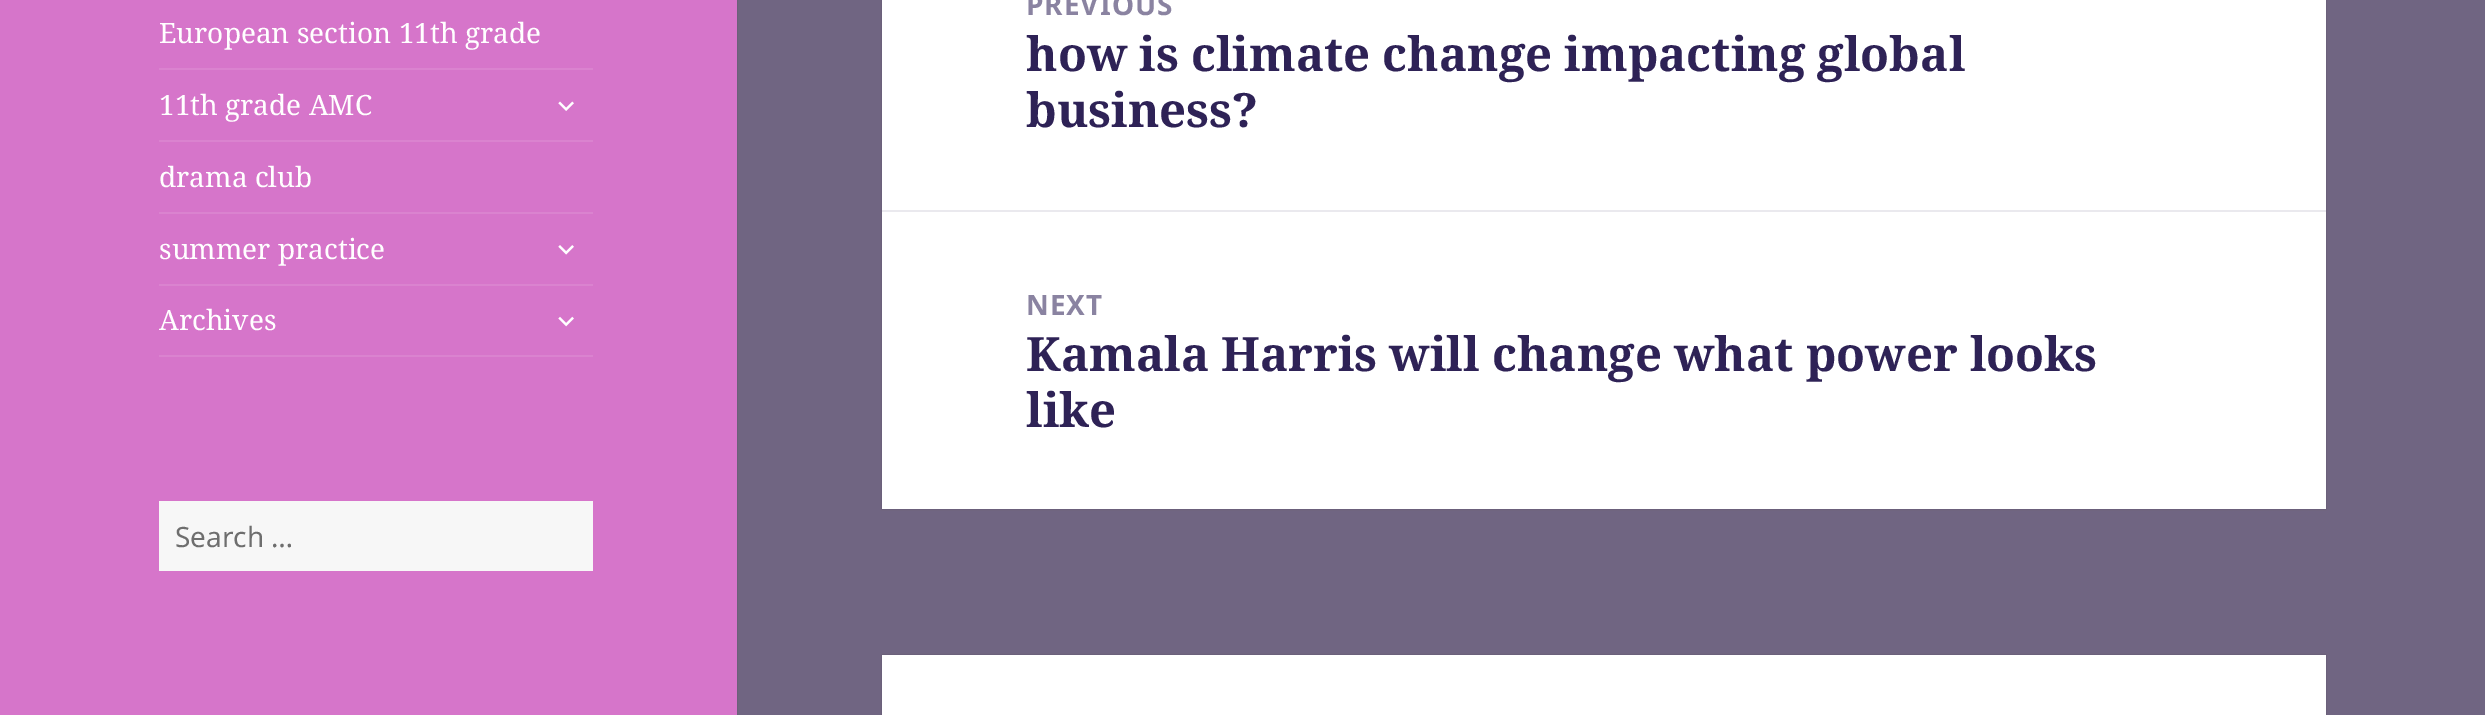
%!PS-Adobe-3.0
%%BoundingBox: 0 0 2485 715
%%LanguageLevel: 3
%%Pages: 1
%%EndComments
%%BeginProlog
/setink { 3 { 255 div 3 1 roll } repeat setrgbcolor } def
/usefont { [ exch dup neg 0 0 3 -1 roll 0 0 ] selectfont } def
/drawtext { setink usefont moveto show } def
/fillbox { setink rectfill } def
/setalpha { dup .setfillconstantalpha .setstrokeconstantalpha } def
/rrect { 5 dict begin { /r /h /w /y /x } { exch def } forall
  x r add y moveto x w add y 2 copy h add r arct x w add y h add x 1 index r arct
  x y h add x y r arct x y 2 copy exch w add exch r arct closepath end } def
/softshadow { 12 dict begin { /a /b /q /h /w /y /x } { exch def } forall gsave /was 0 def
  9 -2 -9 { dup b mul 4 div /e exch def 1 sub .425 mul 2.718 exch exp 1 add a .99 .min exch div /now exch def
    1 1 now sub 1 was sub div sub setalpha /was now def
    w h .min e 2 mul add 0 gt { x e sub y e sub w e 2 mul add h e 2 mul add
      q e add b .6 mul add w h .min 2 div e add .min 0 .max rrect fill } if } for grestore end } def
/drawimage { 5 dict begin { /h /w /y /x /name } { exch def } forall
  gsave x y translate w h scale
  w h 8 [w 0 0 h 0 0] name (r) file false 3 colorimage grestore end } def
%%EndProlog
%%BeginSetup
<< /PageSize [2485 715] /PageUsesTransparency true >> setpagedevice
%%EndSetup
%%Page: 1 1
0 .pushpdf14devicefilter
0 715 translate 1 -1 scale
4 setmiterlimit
0 0 2485 715 112 101 130 fillbox
0 0 0 setink
0 0 737 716 0 1 0.15 softshadow
0 0 737 715 214 117 202 fillbox
159 355 434 2 218 131 207 fillbox
(European section 11th grade) 159 43 /NotoSerif-Regular 28 255 255 255 drawtext
159 68 434 2 218 131 207 fillbox
(11th grade AMC) 159 115 /NotoSerif-Regular 28 255 255 255 drawtext
(assets/img1.rgb) 558 101 16 10 drawimage
159 140 434 2 218 131 207 fillbox
(drama club) 159 187 /NotoSerif-Regular 28 255 255 255 drawtext
159 212 434 2 218 131 207 fillbox
(summer practice) 159 259 /NotoSerif-Regular 28 255 255 255 drawtext
(assets/img2.rgb) 558 245 16 10 drawimage
159 284 434 2 218 131 207 fillbox
(Archives) 159 330 /NotoSerif-Regular 28 255 255 255 drawtext
(assets/img3.rgb) 558 316 16 11 drawimage
159 501 434 70 247 247 247 fillbox
(Search …) 175 547 /NotoSans-Regular 28 110 110 110 drawtext
0 0 0 setink
882 -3 1444 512 0 1 0.15 softshadow
882 0 1444 509 255 255 255 fillbox
/NotoSans-Bold 28 usefont
138 131 161 setink
1026 15 moveto 1 0 (PREVIOUS) ashow
(how is climate change impacting global) 1026 71 /NotoSerif-Bold 47.25 46 34 86 drawtext
(business?) 1026 127 /NotoSerif-Bold 47.25 46 34 86 drawtext
882 210 1444 2 234 233 238 fillbox
/NotoSans-Bold 28 usefont
138 131 161 setink
1026 315 moveto 1 0 (NEXT) ashow
(Kamala Harris will change what power looks) 1026 371 /NotoSerif-Bold 47.25 46 34 86 drawtext
(like) 1026 427 /NotoSerif-Bold 47.25 46 34 86 drawtext
0 0 0 setink
882 655 1444 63 0 1 0.15 softshadow
882 655 1444 60 255 255 255 fillbox
.poppdf14devicefilter showpage
%%EOF
